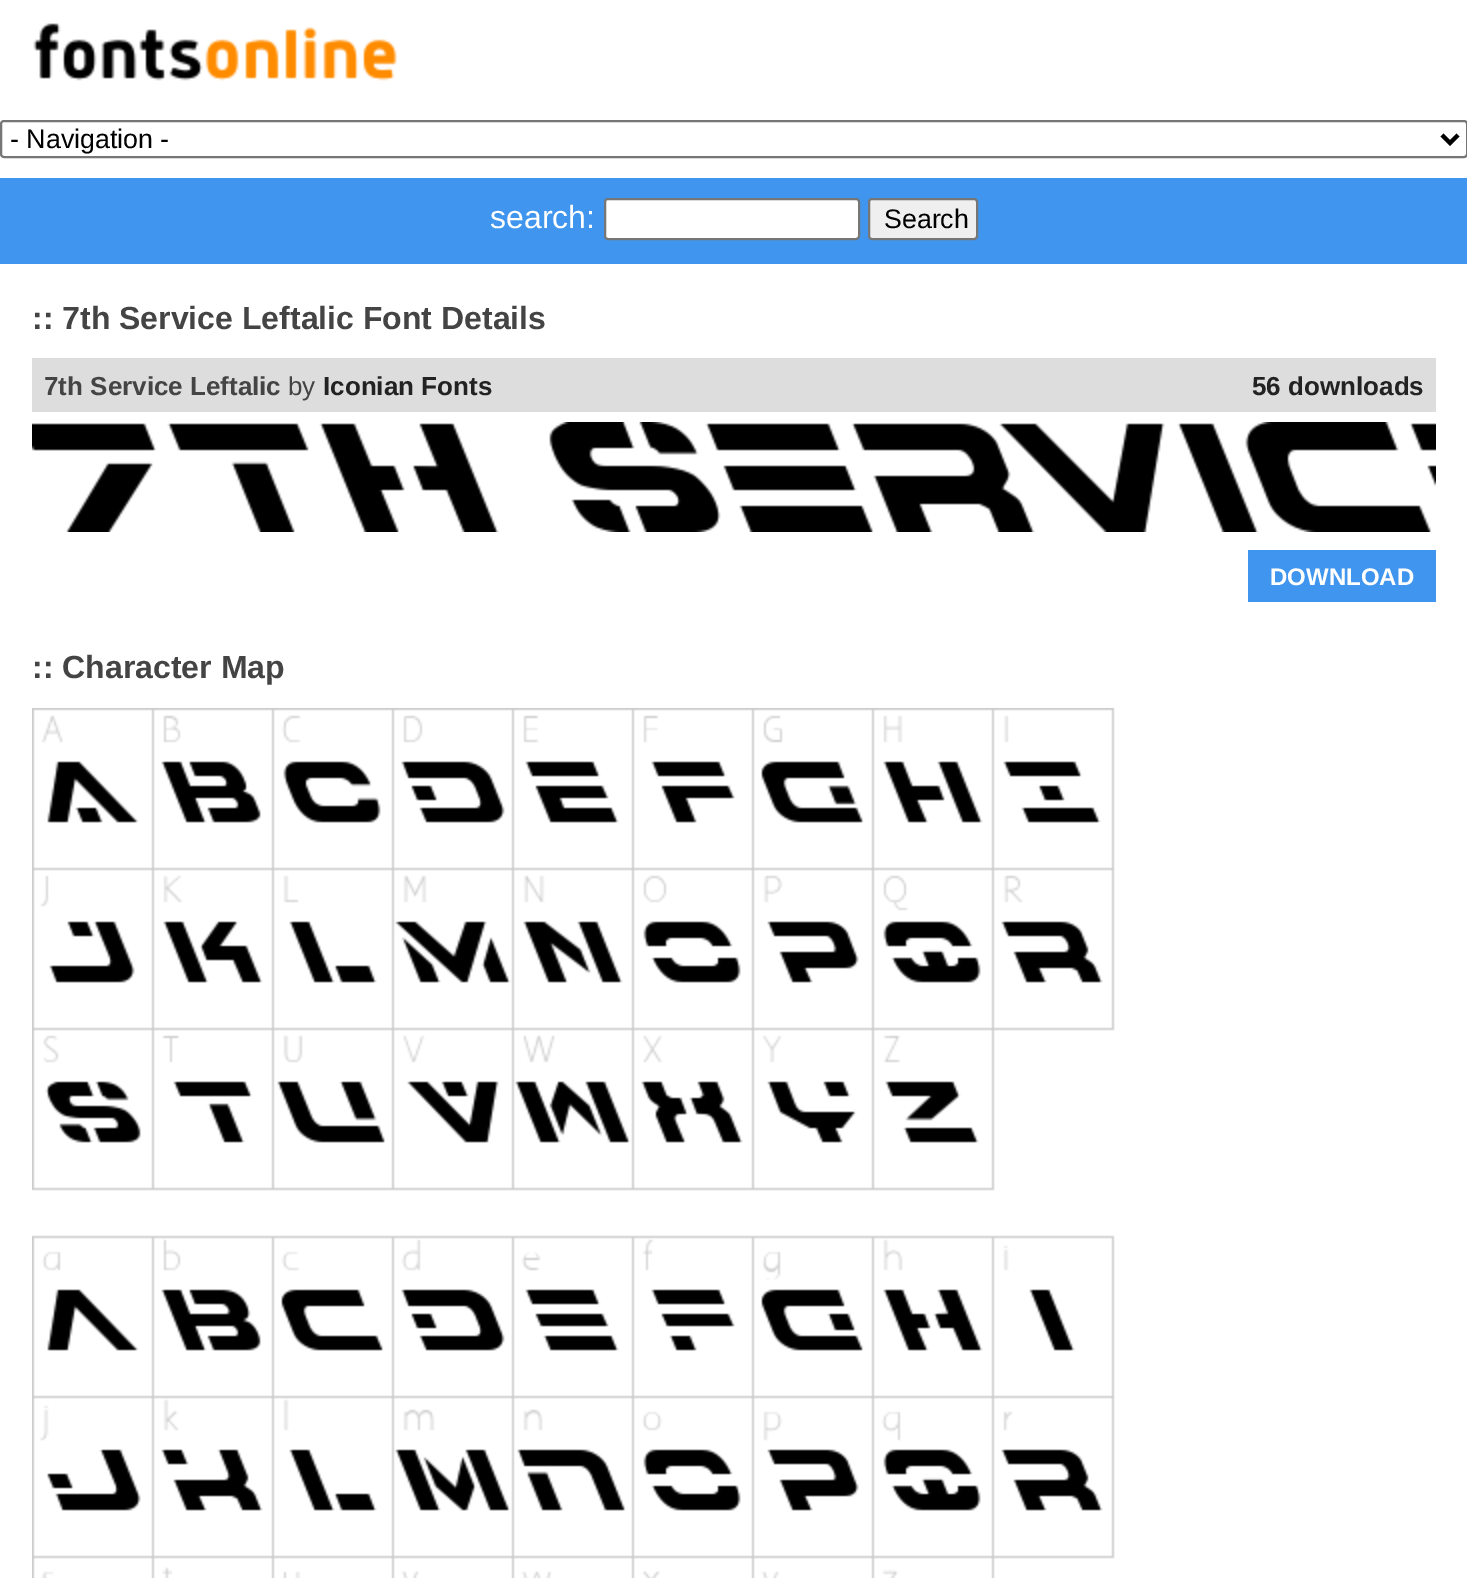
%!PS-Adobe-3.0
%%BoundingBox: 0 0 1467 1578
%%LanguageLevel: 3
%%Pages: 1
%%EndComments
%%BeginProlog
/setink { 3 { 255 div 3 1 roll } repeat setrgbcolor } def
/usefont { [ exch dup neg 0 0 3 -1 roll 0 0 ] selectfont } def
/drawtext { setink usefont moveto show } def
/fillbox { setink rectfill } def
/rrect { 5 dict begin { /r /h /w /y /x } { exch def } forall
  x r add y moveto x w add y 2 copy h add r arct x w add y h add x 1 index r arct
  x y h add x y r arct x y 2 copy exch w add exch r arct closepath end } def
/drawimage { 5 dict begin { /h /w /y /x /name } { exch def } forall
  gsave x y translate w h scale
  w h 8 [w 0 0 h 0 0] name (r) file false 3 colorimage grestore end } def
%%EndProlog
%%BeginSetup
<< /PageSize [1467 1578] >> setpagedevice
%%EndSetup
%%Page: 1 1
0 1578 translate 1 -1 scale
4 setmiterlimit
0 0 1467 1578 255 255 255 fillbox
(assets/img1.rgb) 33 23 364 58 drawimage
118 118 118 setink
2 setlinewidth
1 121 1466 36 3 rrect stroke
0 0 0 setink
4 setlinewidth
1442 135 moveto 1450 143 lineto 1458 135 lineto stroke
(- Navigation -) 10 148 /LiberationSans-Regular 26.75 0 0 0 drawtext
0 178 1467 86 64 150 238 fillbox
(search:) 490 228 /LiberationSans-Regular 32 255 255 255 drawtext
605 199 254 40 3 rrect gsave fill grestore
118 118 118 setink
2 setlinewidth
stroke
239 239 239 setink
869 199 108 40 3 rrect gsave fill grestore
118 118 118 setink
stroke
(Search) 884 228 /LiberationSans-Regular 26.75 0 0 0 drawtext
(:: 7th Service Leftalic Font Details) 32 329 /LiberationSans-Bold 32 68 68 68 drawtext
32 358 1404 54 221 221 221 fillbox
(7th Service Leftalic) 44 395 /LiberationSans-Bold 26 68 68 68 drawtext
(by) 288 395 /LiberationSans-Regular 26 68 68 68 drawtext
(Iconian Fonts) 323 395 /LiberationSans-Bold 26 34 34 34 drawtext
(56 downloads) 1252 395 /LiberationSans-Bold 26 34 34 34 drawtext
(assets/img2.rgb) 32 422 1404 110 drawimage
1248 550 188 52 64 150 238 fillbox
(DOWNLOAD) 1270 585 /LiberationSans-Bold 24 255 255 255 drawtext
(:: Character Map) 32 678 /LiberationSans-Bold 32 68 68 68 drawtext
(assets/img3.rgb) 32 708 1083 870 drawimage
showpage
%%EOF
